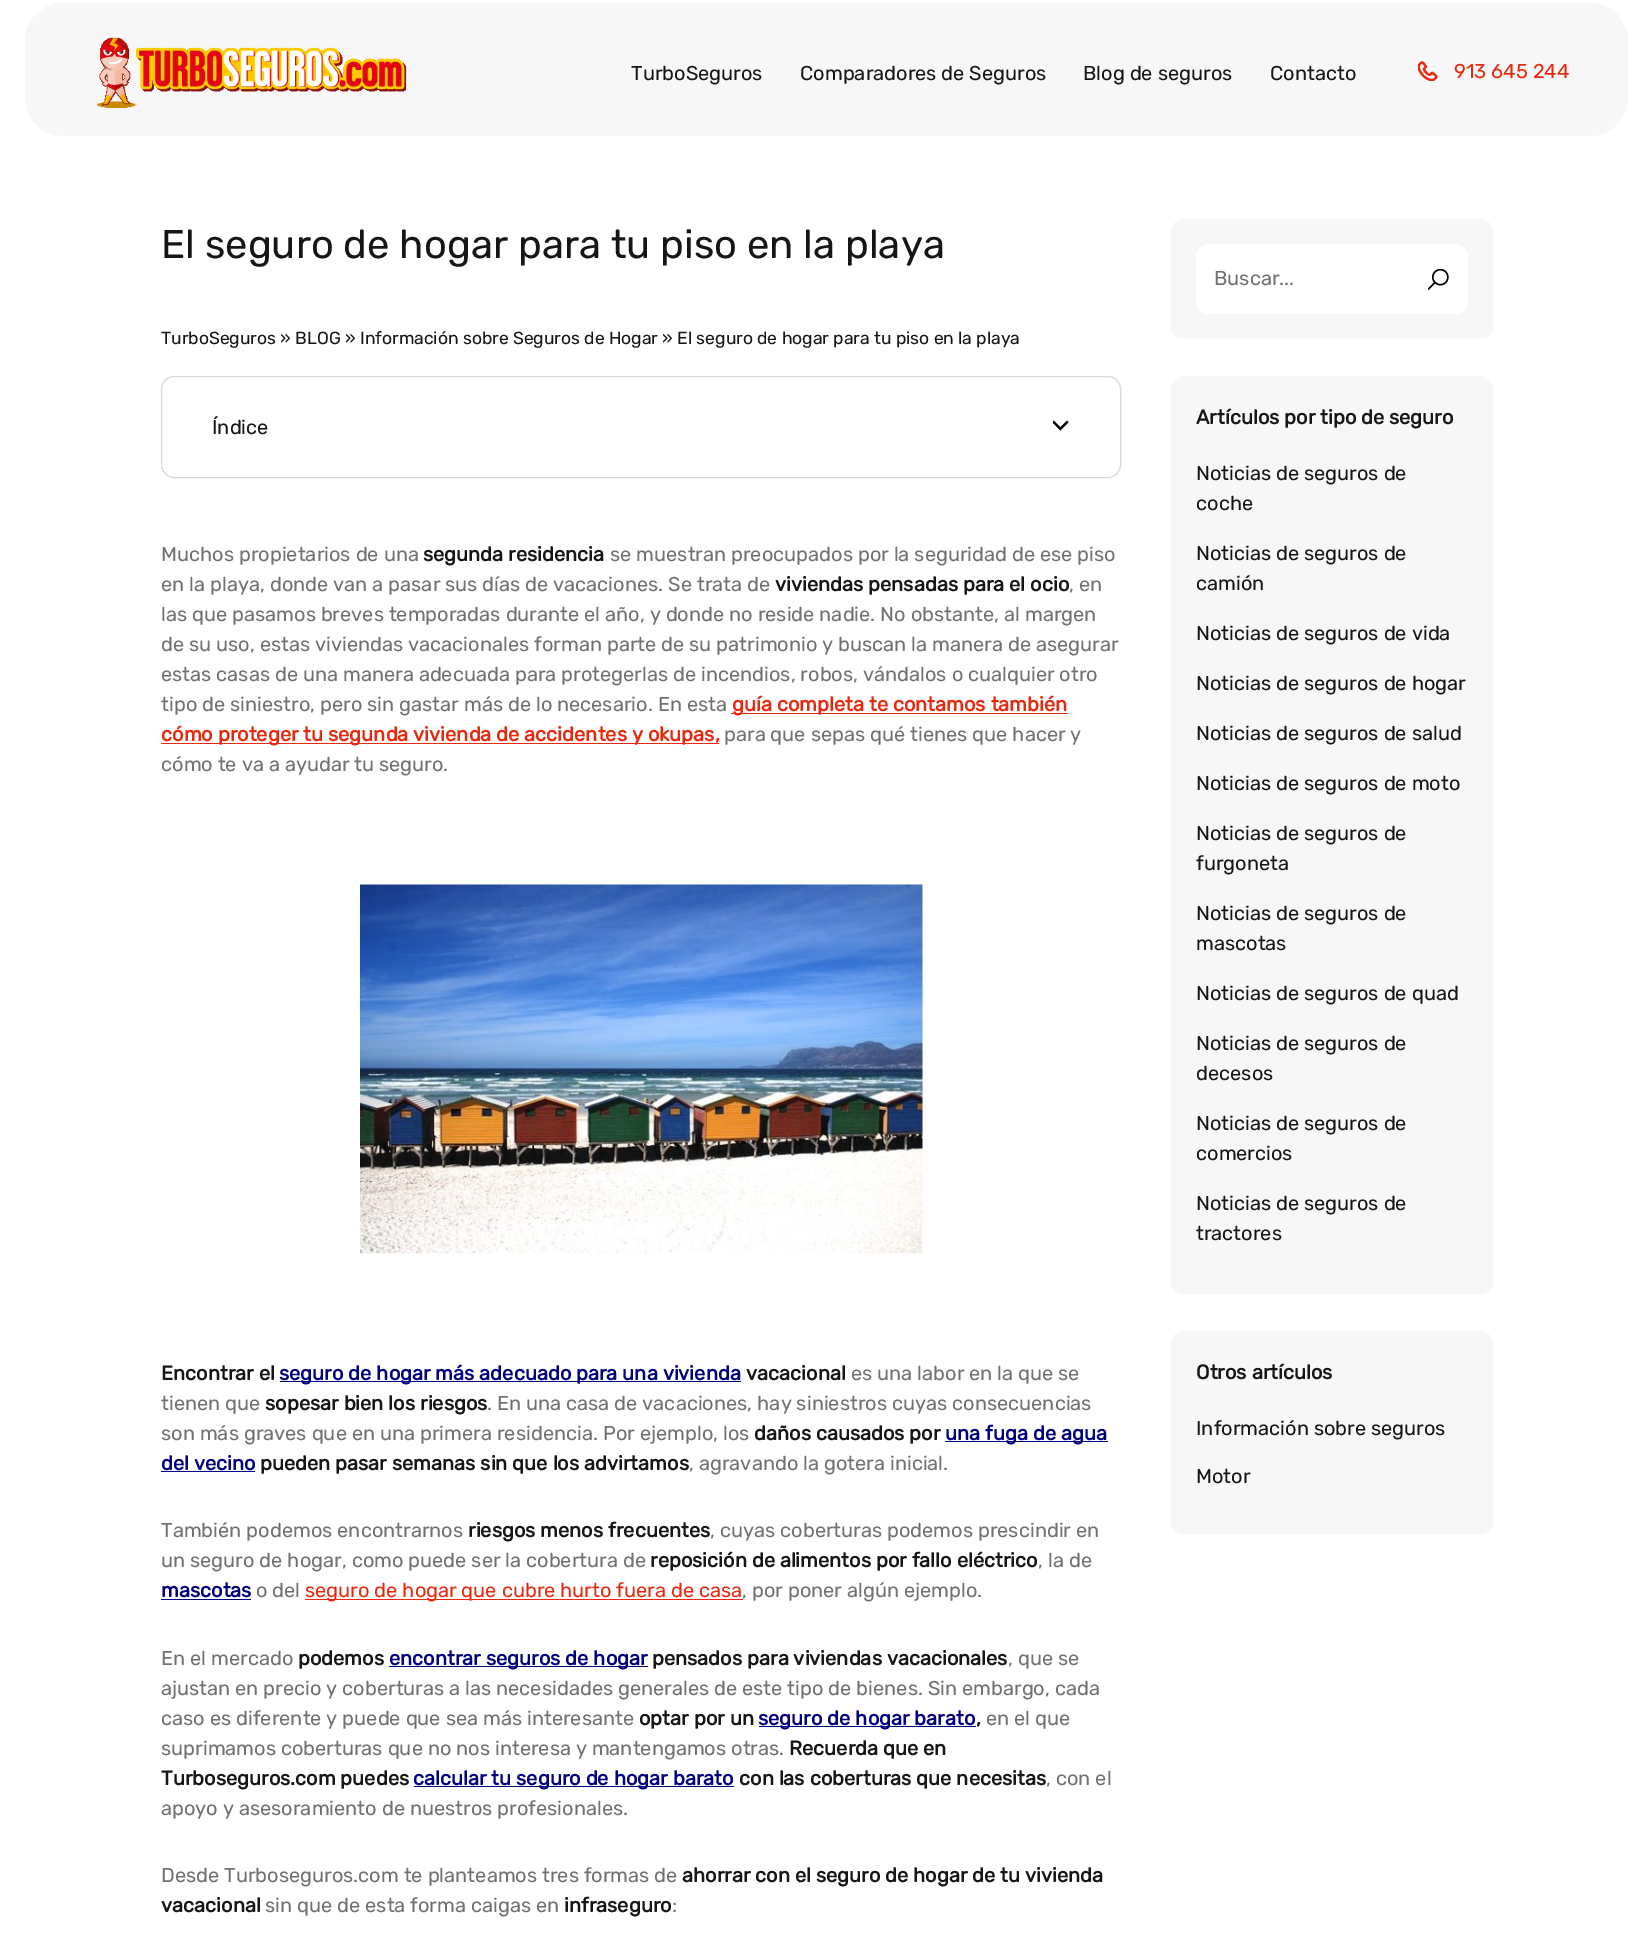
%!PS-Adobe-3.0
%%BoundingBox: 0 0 1652 1956
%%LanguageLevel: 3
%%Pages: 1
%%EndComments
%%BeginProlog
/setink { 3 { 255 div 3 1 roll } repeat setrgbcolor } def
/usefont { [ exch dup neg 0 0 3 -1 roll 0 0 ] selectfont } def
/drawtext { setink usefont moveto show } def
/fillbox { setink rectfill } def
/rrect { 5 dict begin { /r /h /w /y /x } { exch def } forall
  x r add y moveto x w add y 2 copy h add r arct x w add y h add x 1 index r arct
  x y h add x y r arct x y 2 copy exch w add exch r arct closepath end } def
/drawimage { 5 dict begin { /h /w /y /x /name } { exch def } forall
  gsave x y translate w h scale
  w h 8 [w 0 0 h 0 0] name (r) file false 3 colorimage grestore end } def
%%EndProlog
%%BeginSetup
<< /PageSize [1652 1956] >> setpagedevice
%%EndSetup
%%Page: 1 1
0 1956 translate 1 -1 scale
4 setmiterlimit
0 0 1652 1956 255 255 255 fillbox
247 247 247 setink
25 3 1603 133 38 rrect fill
(assets/img1.rgb) 97 37 310 71 drawimage
(TurboSeguros) 631 80 /Rubik-Regular 20 21 23 20 drawtext
(Comparadores de Seguros) 800 80 /Rubik-Regular 20 21 23 20 drawtext
(Blog de seguros) 1083 80 /Rubik-Regular 20 21 23 20 drawtext
(Contacto) 1270 80 /Rubik-Regular 20 21 23 20 drawtext
(assets/img2.rgb) 1418 61 20 20 drawimage
(913 645 244) 1454 78 /Rubik-Regular 20 231 42 15 drawtext
(El seguro de hogar para tu piso en la playa) 161 258 /Rubik-Regular 40 21 23 20 drawtext
(TurboSeguros » BLOG » Información sobre Seguros de Hogar » El seguro de hogar para tu piso en la playa) 161 344 /Rubik-Regular 17.5 21 23 20 drawtext
217 217 217 setink
161.5 376.5 959 101 12.5 rrect stroke
(Índice) 212 434 /Rubik-Regular 20 21 23 20 drawtext
(assets/img3.rgb) 1053 420 16 11 drawimage
(Muchos propietarios de una) 161 561 /Rubik-Regular 20 113 113 113 drawtext
(segunda residencia) 423 561 /Rubik-Bold 20 21 23 20 drawtext
(se muestran preocupados por la seguridad de ese piso) 610 561 /Rubik-Regular 20 113 113 113 drawtext
(en la playa, donde van a pasar sus días de vacaciones. Se trata de) 161 591 /Rubik-Regular 20 113 113 113 drawtext
(viviendas pensadas para el ocio) 775 591 /Rubik-Bold 20 21 23 20 drawtext
(, en) 1069 591 /Rubik-Regular 20 113 113 113 drawtext
(las que pasamos breves temporadas durante el año, y donde no reside nadie. No obstante, al margen) 161 621 /Rubik-Regular 20 113 113 113 drawtext
(de su uso, estas viviendas vacacionales forman parte de su patrimonio y buscan la manera de asegurar) 161 651 /Rubik-Regular 20 113 113 113 drawtext
(estas casas de una manera adecuada para protegerlas de incendios, robos, vándalos o cualquier otro) 161 681 /Rubik-Regular 20 113 113 113 drawtext
(tipo de siniestro, pero sin gastar más de lo necesario. En esta) 161 711 /Rubik-Regular 20 113 113 113 drawtext
731 713 337 1 231 42 15 fillbox
(guía completa te contamos también) 732 711 /Rubik-Bold 20 231 42 15 drawtext
161 743 558 1 231 42 15 fillbox
(cómo proteger tu segunda vivienda de accidentes y okupas,) 161 741 /Rubik-Bold 20 231 42 15 drawtext
(para que sepas qué tienes que hacer y) 724 741 /Rubik-Regular 20 113 113 113 drawtext
(cómo te va a ayudar tu seguro.) 161 771 /Rubik-Regular 20 113 113 113 drawtext
(assets/img4.rgb) 360 884 563 370 drawimage
(Encontrar el) 161 1380 /Rubik-Bold 20 21 23 20 drawtext
280 1381 461 1 0 0 128 fillbox
(seguro de hogar más adecuado para una vivienda) 279 1380 /Rubik-Bold 20 0 0 128 drawtext
(vacacional) 746 1380 /Rubik-Bold 20 21 23 20 drawtext
(es una labor en la que se) 851 1380 /Rubik-Regular 20 113 113 113 drawtext
(tienen que) 161 1410 /Rubik-Regular 20 113 113 113 drawtext
(sopesar bien los riesgos) 265 1410 /Rubik-Bold 20 21 23 20 drawtext
(. En una casa de vacaciones, hay siniestros cuyas consecuencias) 487 1410 /Rubik-Regular 20 113 113 113 drawtext
(son más graves que en una primera residencia. Por ejemplo, los) 161 1440 /Rubik-Regular 20 113 113 113 drawtext
(daños causados por) 754 1440 /Rubik-Bold 20 21 23 20 drawtext
945 1441 163 1 0 0 128 fillbox
(una fuga de agua) 945 1440 /Rubik-Bold 20 0 0 128 drawtext
(del vecino) 161 1470 /Rubik-Bold 20 0 0 128 drawtext
161 1471 94 1 0 0 128 fillbox
(pueden pasar semanas sin que los advirtamos) 260 1470 /Rubik-Bold 20 21 23 20 drawtext
(, agravando la gotera inicial.) 689 1470 /Rubik-Regular 20 113 113 113 drawtext
(También podemos encontrarnos) 161 1537 /Rubik-Regular 20 113 113 113 drawtext
(riesgos menos frecuentes) 468 1537 /Rubik-Bold 20 21 23 20 drawtext
(, cuyas coberturas podemos prescindir en) 710 1537 /Rubik-Regular 20 113 113 113 drawtext
(un seguro de hogar, como puede ser la cobertura de) 161 1567 /Rubik-Regular 20 113 113 113 drawtext
(reposición de alimentos por fallo eléctrico) 650 1567 /Rubik-Bold 20 21 23 20 drawtext
(, la de) 1038 1567 /Rubik-Regular 20 113 113 113 drawtext
(mascotas) 161 1597 /Rubik-Bold 20 0 0 128 drawtext
161 1599 90 1 0 0 128 fillbox
(o del) 256 1597 /Rubik-Regular 20 113 113 113 drawtext
305 1599 438 1 231 42 15 fillbox
(seguro de hogar que cubre hurto fuera de casa) 305 1597 /Rubik-Regular 20 231 42 15 drawtext
(, por poner algún ejemplo.) 742 1597 /Rubik-Regular 20 113 113 113 drawtext
(En el mercado) 161 1665 /Rubik-Regular 20 113 113 113 drawtext
(podemos) 298 1665 /Rubik-Bold 20 21 23 20 drawtext
389 1666 259 1 0 0 128 fillbox
(encontrar seguros de hogar) 389 1665 /Rubik-Bold 20 0 0 128 drawtext
(pensados para viviendas vacacionales) 652 1665 /Rubik-Bold 20 21 23 20 drawtext
(, que se) 1008 1665 /Rubik-Regular 20 113 113 113 drawtext
(ajustan en precio y coberturas a las necesidades generales de este tipo de bienes. Sin embargo, cada) 161 1695 /Rubik-Regular 20 113 113 113 drawtext
(caso es diferente y puede que sea más interesante) 161 1725 /Rubik-Regular 20 113 113 113 drawtext
(optar por un) 639 1725 /Rubik-Bold 20 21 23 20 drawtext
759 1726 217 1 0 0 128 fillbox
(seguro de hogar barato) 758 1725 /Rubik-Bold 20 0 0 128 drawtext
(,) 976 1725 /Rubik-Bold 20 21 23 20 drawtext
(en el que) 986 1725 /Rubik-Regular 20 113 113 113 drawtext
(suprimamos coberturas que no nos interesa y mantengamos otras.) 161 1755 /Rubik-Regular 20 113 113 113 drawtext
(Recuerda que en) 789 1755 /Rubik-Bold 20 21 23 20 drawtext
(Turboseguros.com puedes) 161 1785 /Rubik-Bold 20 21 23 20 drawtext
414 1786 320 1 0 0 128 fillbox
(calcular tu seguro de hogar barato) 413 1785 /Rubik-Bold 20 0 0 128 drawtext
(con las coberturas que necesitas) 739 1785 /Rubik-Bold 20 21 23 20 drawtext
(, con el) 1046 1785 /Rubik-Regular 20 113 113 113 drawtext
(apoyo y asesoramiento de nuestros profesionales.) 161 1815 /Rubik-Regular 20 113 113 113 drawtext
(Desde Turboseguros.com te planteamos tres formas de) 161 1882 /Rubik-Regular 20 113 113 113 drawtext
(ahorrar con el seguro de hogar de tu vivienda) 682 1882 /Rubik-Bold 20 21 23 20 drawtext
(vacacional) 161 1912 /Rubik-Bold 20 21 23 20 drawtext
(sin que de esta forma caigas en) 265 1912 /Rubik-Regular 20 113 113 113 drawtext
(infraseguro) 564 1912 /Rubik-Bold 20 21 23 20 drawtext
(:) 672 1912 /Rubik-Regular 20 113 113 113 drawtext
247 247 247 setink
1171 219 322 120 13 rrect fill
255 255 255 setink
1196 244 272 70 13 rrect fill
(Buscar...) 1214 285 /Rubik-Regular 20 113 113 113 drawtext
(assets/img5.rgb) 1428 269 21 21 drawimage
247 247 247 setink
1171 376 322 918 13 rrect fill
(Artículos por tipo de seguro) 1196 424 /Rubik-Bold 20 21 23 20 drawtext
(Noticias de seguros de) 1196 480 /Rubik-Regular 20 21 23 20 drawtext
(coche) 1196 510 /Rubik-Regular 20 21 23 20 drawtext
(Noticias de seguros de) 1196 560 /Rubik-Regular 20 21 23 20 drawtext
(camión) 1196 590 /Rubik-Regular 20 21 23 20 drawtext
(Noticias de seguros de vida) 1196 640 /Rubik-Regular 20 21 23 20 drawtext
(Noticias de seguros de hogar) 1196 690 /Rubik-Regular 20 21 23 20 drawtext
(Noticias de seguros de salud) 1196 740 /Rubik-Regular 20 21 23 20 drawtext
(Noticias de seguros de moto) 1196 790 /Rubik-Regular 20 21 23 20 drawtext
(Noticias de seguros de) 1196 840 /Rubik-Regular 20 21 23 20 drawtext
(furgoneta) 1196 870 /Rubik-Regular 20 21 23 20 drawtext
(Noticias de seguros de) 1196 920 /Rubik-Regular 20 21 23 20 drawtext
(mascotas) 1196 950 /Rubik-Regular 20 21 23 20 drawtext
(Noticias de seguros de quad) 1196 1000 /Rubik-Regular 20 21 23 20 drawtext
(Noticias de seguros de) 1196 1050 /Rubik-Regular 20 21 23 20 drawtext
(decesos) 1196 1080 /Rubik-Regular 20 21 23 20 drawtext
(Noticias de seguros de) 1196 1130 /Rubik-Regular 20 21 23 20 drawtext
(comercios) 1196 1160 /Rubik-Regular 20 21 23 20 drawtext
(Noticias de seguros de) 1196 1210 /Rubik-Regular 20 21 23 20 drawtext
(tractores) 1196 1240 /Rubik-Regular 20 21 23 20 drawtext
247 247 247 setink
1171 1331 322 203 13 rrect fill
(Otros artículos) 1196 1379 /Rubik-Bold 20 21 23 20 drawtext
(Información sobre seguros) 1196 1435 /Rubik-Regular 20 21 23 20 drawtext
(Motor) 1196 1483 /Rubik-Regular 20 21 23 20 drawtext
showpage
%%EOF
